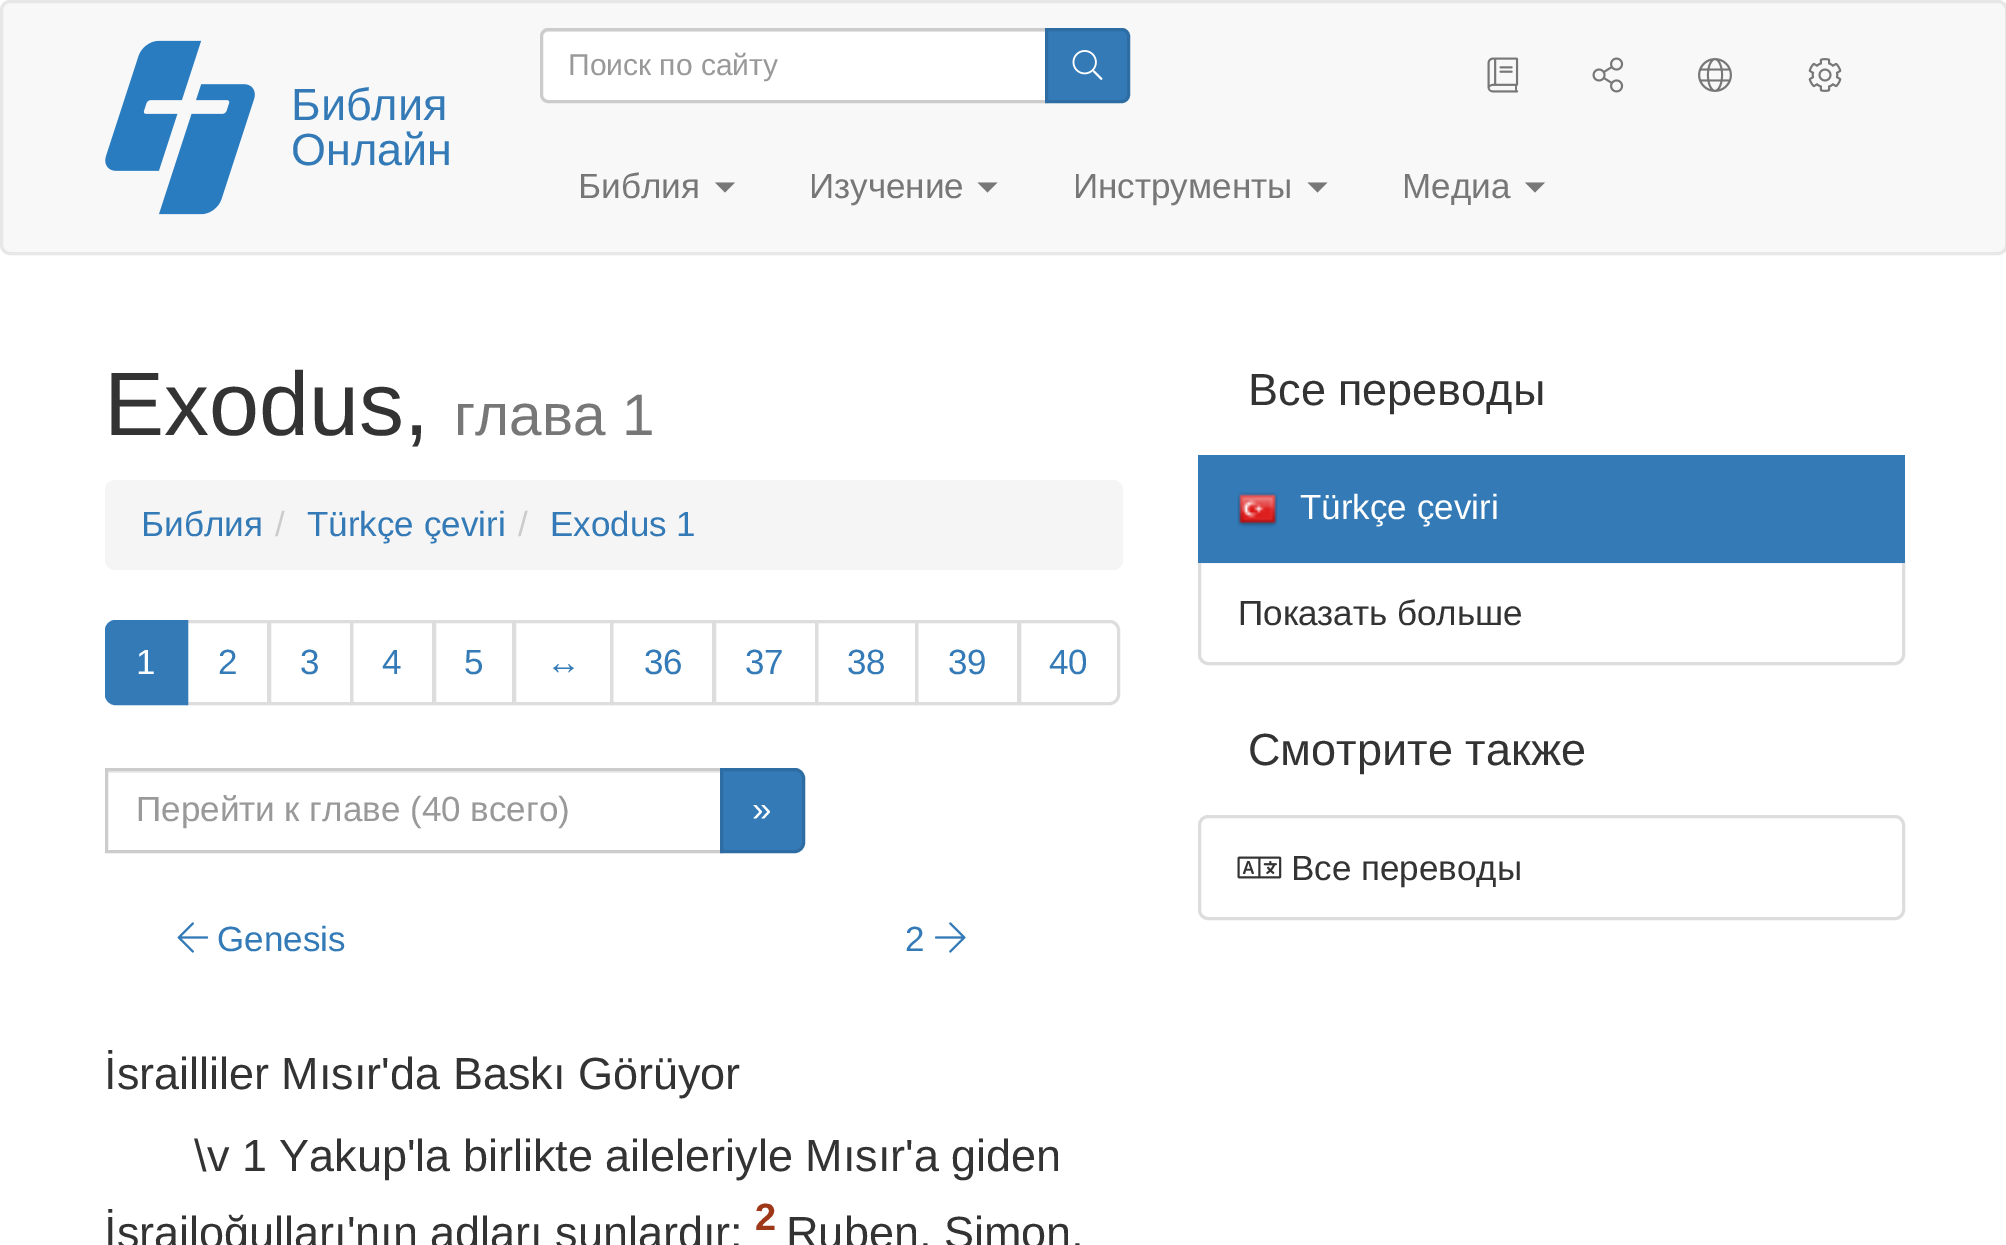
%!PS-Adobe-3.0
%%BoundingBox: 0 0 2006 1245
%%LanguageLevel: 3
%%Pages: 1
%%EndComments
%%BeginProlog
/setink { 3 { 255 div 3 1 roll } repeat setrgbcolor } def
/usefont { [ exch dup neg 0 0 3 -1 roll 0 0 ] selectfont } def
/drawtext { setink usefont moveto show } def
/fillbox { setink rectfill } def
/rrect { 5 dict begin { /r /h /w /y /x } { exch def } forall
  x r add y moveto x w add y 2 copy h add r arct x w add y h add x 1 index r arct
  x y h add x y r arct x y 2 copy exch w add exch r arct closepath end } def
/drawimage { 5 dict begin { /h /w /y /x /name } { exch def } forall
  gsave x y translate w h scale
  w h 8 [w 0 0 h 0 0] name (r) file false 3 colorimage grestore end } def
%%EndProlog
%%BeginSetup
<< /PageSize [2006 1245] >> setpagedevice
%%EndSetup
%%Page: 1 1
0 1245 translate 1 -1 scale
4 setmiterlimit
0 0 2006 1245 255 255 255 fillbox
248 248 248 setink
1.5 1.5 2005 252 8.5 rrect gsave fill grestore
231 231 231 setink
3 setlinewidth
stroke
(assets/img1.rgb) 105 40 150 175 drawimage
(Библия) 291 120 /LiberationSans-Regular 45 51 122 183 drawtext
(Онлайн) 291 165 /LiberationSans-Regular 45 51 122 183 drawtext
255 255 255 setink
548 28 moveto 1048 28 lineto 1048 103 lineto 548 103 lineto 543.5 103 540 99.5 540 95 curveto 540 36 lineto 540 31.5 543.5 28 548 28 curveto closepath fill
236 236 236 setink
548 32 moveto 1045 32 lineto 1045 30 lineto 548 30 lineto 545 30 543 32 543 35 curveto 544 33 546 32 548 32 curveto closepath fill
204 204 204 setink
548 29.5 moveto 1046.5 29.5 lineto 1046.5 101.5 lineto 548 101.5 lineto 544.5 101.5 541.5 98.5 541.5 95 curveto 541.5 36 lineto 541.5 32.5 544.5 29.5 548 29.5 curveto closepath stroke
(Поиск по сайту) 568 75 /LiberationSans-Regular 30 153 153 153 drawtext
51 122 183 setink
1046.5 29.5 moveto 1122 29.5 lineto 1125.5 29.5 1128.5 32.5 1128.5 36 curveto 1128.5 95 lineto 1128.5 98.5 1125.5 101.5 1122 101.5 curveto 1046.5 101.5 lineto closepath gsave fill grestore
46 109 164 setink
stroke
(assets/img2.rgb) 1072 50 31 30 drawimage
(assets/img3.rgb) 1487 57 32 36 drawimage
(assets/img4.rgb) 1592 57 32 36 drawimage
(assets/img5.rgb) 1698 58 34 34 drawimage
(assets/img6.rgb) 1808 58 34 34 drawimage
(Библия) 578 198 /LiberationSans-Regular 35 119 119 119 drawtext
715 182.5 moveto 735 182.5 lineto 725 192.5 lineto closepath fill
(Изучение) 809 198 /LiberationSans-Regular 35 119 119 119 drawtext
977.5 182.5 moveto 997.5 182.5 lineto 987.5 192.5 lineto closepath fill
(Инструменты) 1073 198 /LiberationSans-Regular 35 119 119 119 drawtext
1307.5 182.5 moveto 1327.5 182.5 lineto 1317.5 192.5 lineto closepath fill
(Медиа) 1402 198 /LiberationSans-Regular 35 119 119 119 drawtext
1525 182.5 moveto 1545 182.5 lineto 1535 192.5 lineto closepath fill
(Exodus,) 104 435 /LiberationSans-Regular 90 51 51 51 drawtext
(глава 1) 454 435 /LiberationSans-Regular 58.5 119 119 119 drawtext
245 245 245 setink
105 480 1018 90 10 rrect fill
(Библия) 141 536 /LiberationSans-Regular 35 51 122 183 drawtext
(/) 275 536 /LiberationSans-Regular 35 204 204 204 drawtext
(Türkçe çeviri) 307 536 /LiberationSans-Regular 35 51 122 183 drawtext
(/) 518 536 /LiberationSans-Regular 35 204 204 204 drawtext
(Exodus 1) 550 536 /LiberationSans-Regular 35 51 122 183 drawtext
221 221 221 setink
186.5 621.5 82 82 rectstroke
51 122 183 setink
115 621.5 moveto 186.5 621.5 lineto 186.5 703.5 lineto 115 703.5 lineto 110.5 703.5 106.5 699.5 106.5 695 curveto 106.5 630 lineto 106.5 625.5 110.5 621.5 115 621.5 curveto closepath gsave fill grestore
stroke
(1) 136 674 /LiberationSans-Regular 35 255 255 255 drawtext
(2) 218 674 /LiberationSans-Regular 35 51 122 183 drawtext
221 221 221 setink
269.5 621.5 82 82 rectstroke
(3) 300 674 /LiberationSans-Regular 35 51 122 183 drawtext
221 221 221 setink
351.5 621.5 82 82 rectstroke
(4) 382 674 /LiberationSans-Regular 35 51 122 183 drawtext
221 221 221 setink
434.5 621.5 79 82 rectstroke
(5) 464 674 /LiberationSans-Regular 35 51 122 183 drawtext
221 221 221 setink
514.5 621.5 97 82 rectstroke
(↔) 546 674 /LiberationSans-Regular 35 51 122 183 drawtext
221 221 221 setink
611.5 621.5 102 82 rectstroke
(36) 644 674 /LiberationSans-Regular 35 51 122 183 drawtext
221 221 221 setink
714.5 621.5 102 82 rectstroke
(37) 745 674 /LiberationSans-Regular 35 51 122 183 drawtext
221 221 221 setink
816.5 621.5 100 82 rectstroke
(38) 847 674 /LiberationSans-Regular 35 51 122 183 drawtext
221 221 221 setink
916.5 621.5 102 82 rectstroke
(39) 948 674 /LiberationSans-Regular 35 51 122 183 drawtext
255 255 255 setink
1019.5 621.5 moveto 1110 621.5 lineto 1114.5 621.5 1118.5 625.5 1118.5 630 curveto 1118.5 695 lineto 1118.5 699.5 1114.5 703.5 1110 703.5 curveto 1019.5 703.5 lineto closepath gsave fill grestore
221 221 221 setink
stroke
(40) 1049 674 /LiberationSans-Regular 35 51 122 183 drawtext
108 771 612 2 236 236 236 fillbox
204 204 204 setink
106.5 769.5 615 82 rectstroke
(Перейти к главе \(40 всего\)) 136 821 /LiberationSans-Regular 35 153 153 153 drawtext
51 122 183 setink
721.5 769.5 moveto 795 769.5 lineto 799.5 769.5 803.5 773.5 803.5 778 curveto 803.5 843 lineto 803.5 847.5 799.5 851.5 795 851.5 curveto 721.5 851.5 lineto closepath gsave fill grestore
46 109 164 setink
stroke
(») 752 821 /LiberationSans-Regular 35 255 255 255 drawtext
(assets/img7.rgb) 177 922 32 31 drawimage
(Genesis) 217 951 /LiberationSans-Regular 35 51 122 183 drawtext
(2) 905 951 /LiberationSans-Regular 35 51 122 183 drawtext
(assets/img8.rgb) 935 922 31 31 drawimage
(İsrailliler Mısır'da Baskı Görüyor) 104 1089 /LiberationSans-Regular 45 51 51 51 drawtext
(\\v 1 Yakup'la birlikte aileleriyle Mısır'a giden) 194 1171 /LiberationSans-Regular 45 51 51 51 drawtext
(İsrailoğulları'nın adları şunlardır:) 104 1248 /LiberationSans-Regular 45 51 51 51 drawtext
(2) 755 1230 /LiberationSans-Bold 38 159 56 25 drawtext
(Ruben, Şimon,) 786 1248 /LiberationSans-Regular 45 51 51 51 drawtext
(Все переводы) 1248 405 /LiberationSans-Regular 45 51 51 51 drawtext
221 221 221 setink
1199.5 561.5 moveto 1903.5 561.5 lineto 1903.5 655 lineto 1903.5 659.5 1899.5 663.5 1895 663.5 curveto 1208 663.5 lineto 1203.5 663.5 1199.5 659.5 1199.5 655 curveto closepath stroke
1198 455 707 108 51 122 183 fillbox
(assets/img9.rgb) 1237 492 41 36 drawimage
(Türkçe çeviri) 1300 519 /LiberationSans-Regular 35 255 255 255 drawtext
(Показать больше) 1238 625 /LiberationSans-Regular 35 51 51 51 drawtext
(Смотрите также) 1248 765 /LiberationSans-Regular 45 51 51 51 drawtext
221 221 221 setink
1199.5 816.5 704 102 8.5 rrect stroke
(assets/img10.rgb) 1237 856 45 23 drawimage
(Все переводы) 1291 880 /LiberationSans-Regular 35 51 51 51 drawtext
showpage
%%EOF
